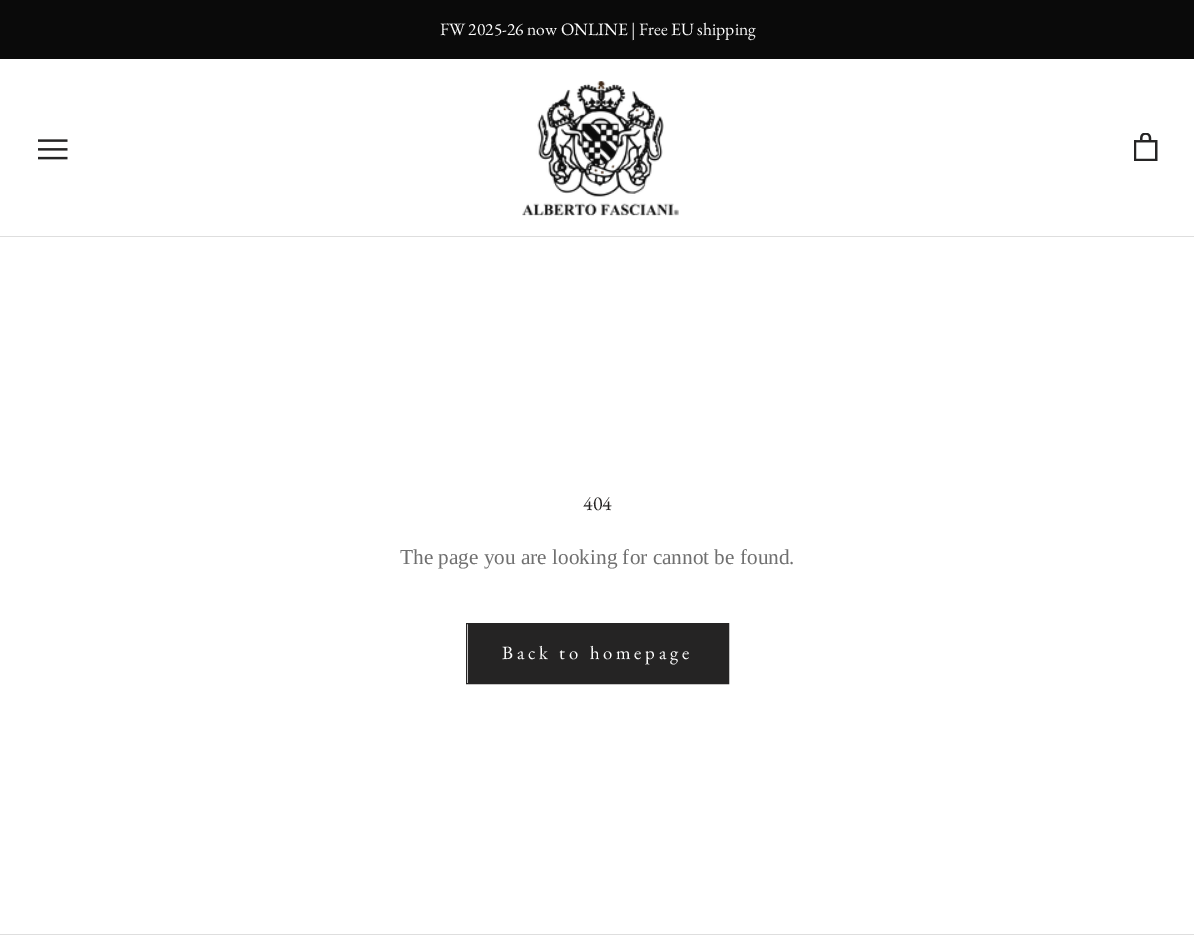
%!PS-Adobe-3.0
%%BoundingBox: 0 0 1194 940
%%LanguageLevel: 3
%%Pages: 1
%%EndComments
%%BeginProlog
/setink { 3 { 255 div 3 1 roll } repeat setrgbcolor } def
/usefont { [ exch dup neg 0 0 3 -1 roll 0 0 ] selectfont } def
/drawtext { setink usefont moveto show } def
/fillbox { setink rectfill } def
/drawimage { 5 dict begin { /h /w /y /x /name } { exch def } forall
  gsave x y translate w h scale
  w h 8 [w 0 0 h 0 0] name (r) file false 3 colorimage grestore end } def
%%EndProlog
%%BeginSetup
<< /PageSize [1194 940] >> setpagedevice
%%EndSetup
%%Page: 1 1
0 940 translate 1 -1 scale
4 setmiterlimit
0 0 1194 940 255 255 255 fillbox
0 0 1194 59 10 10 10 fillbox
(FW 2025-26 now ONLINE | Free EU shipping) 440 35 /EBGaramond-Regular 17.5 255 255 255 drawtext
0 236 1194 1 222 222 222 fillbox
(assets/img1.rgb) 38 139 30 21 drawimage
(assets/img2.rgb) 522 81 157 135 drawimage
(assets/img3.rgb) 1134 133 24 28 drawimage
(404) 583 510 /EBGaramond-Regular 20 37 36 36 drawtext
(The page you are looking for cannot be found.) 400 564 /LiberationSerif-Regular 21.25 112 112 112 drawtext
37 36 36 setink
466.5 623.5 262 60 rectstroke
468 624 260 59 37 36 36 fillbox
/EBGaramond-Regular 18.75 usefont
255 255 255 setink
502 659 moveto 3.75 0 (Back to homepage) ashow
0 934 1194 1 222 222 222 fillbox
showpage
%%EOF
